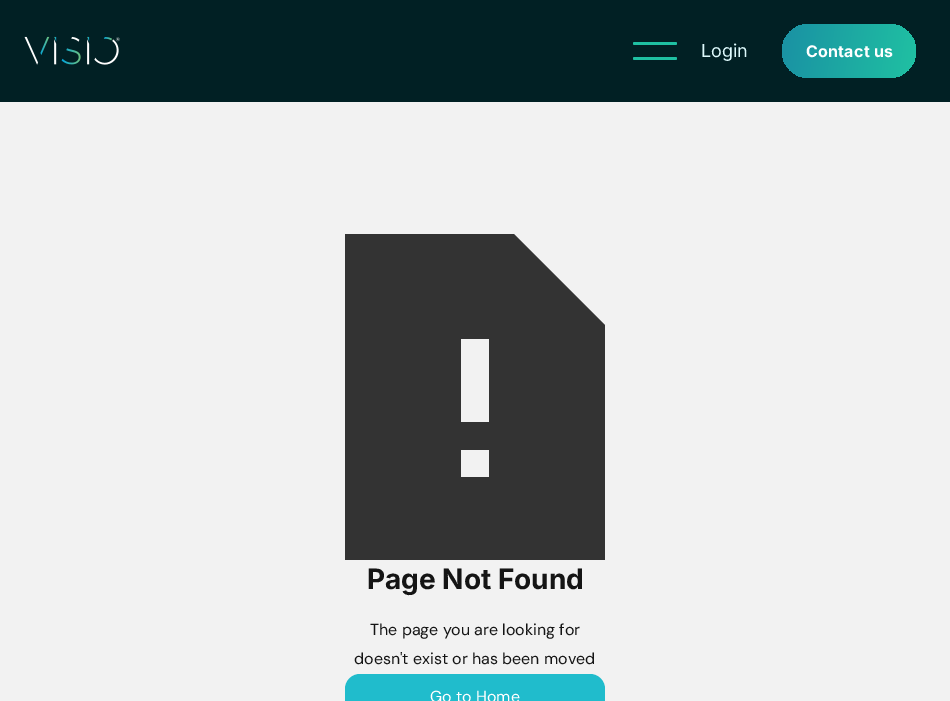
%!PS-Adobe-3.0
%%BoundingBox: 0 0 950 701
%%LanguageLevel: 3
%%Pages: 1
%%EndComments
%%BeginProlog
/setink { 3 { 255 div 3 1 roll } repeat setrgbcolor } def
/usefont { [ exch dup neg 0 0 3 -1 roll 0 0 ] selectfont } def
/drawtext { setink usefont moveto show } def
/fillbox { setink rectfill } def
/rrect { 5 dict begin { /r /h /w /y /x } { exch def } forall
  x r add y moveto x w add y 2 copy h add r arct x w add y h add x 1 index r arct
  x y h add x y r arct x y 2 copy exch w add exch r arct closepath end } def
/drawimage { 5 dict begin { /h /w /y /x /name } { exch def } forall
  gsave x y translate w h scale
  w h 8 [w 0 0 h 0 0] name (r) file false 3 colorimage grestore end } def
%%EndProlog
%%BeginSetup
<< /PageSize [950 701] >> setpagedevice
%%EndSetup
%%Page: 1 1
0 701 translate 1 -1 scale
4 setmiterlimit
0 0 950 701 242 242 242 fillbox
0 0 950 102 1 32 36 fillbox
(assets/img1.rgb) 24 36 96 29 drawimage
31 192 162 setink
633 42 44 3 1.5 rrect fill
633 57 44 3 1.5 rrect fill
(Login) 701 57 /Inter-Regular 18 221 249 252 drawtext
gsave 782 24 134 54 27 rrect clip newpath
<< /ShadingType 2 /ColorSpace /DeviceRGB /Coords [779 39 919 63] /Extend [true true] /Function << /FunctionType 3 /Domain [0 1] /Functions [<< /FunctionType 2 /Domain [0 1] /C0 [0.102 0.576 0.639] /C1 [0.102 0.576 0.639] /N 1 >> << /FunctionType 2 /Domain [0 1] /C0 [0.102 0.576 0.639] /C1 [0.122 0.753 0.635] /N 1 >> << /FunctionType 2 /Domain [0 1] /C0 [0.122 0.753 0.635] /C1 [0.122 0.753 0.635] /N 1 >>] /Bounds [0.04 0.97] /Encode [0 1 0 1 0 1] >> >> shfill grestore
/Inter-Bold 16 usefont
255 255 255 setink
806 57 moveto 0.25 0 (Contact us) ashow
51 51 51 setink
345 234 moveto 514 234 lineto 605 325 lineto 605 560 lineto 345 560 lineto closepath 461 339 moveto 489 339 lineto 489 422 lineto 461 422 lineto closepath 461 450 moveto 489 450 lineto 489 477 lineto 461 477 lineto closepath eofill
(Page Not Found) 367 589 /Inter-Bold 28 21 21 21 drawtext
(The page you are looking for) 370 635 /DMSans-Regular 16 21 21 21 drawtext
(doesn't exist or has been moved) 354 664 /DMSans-Regular 16 21 21 21 drawtext
32 188 204 setink
345 674 260 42 15 rrect fill
(Go to Home) 430 702 /DMSans-Regular 16 255 255 255 drawtext
showpage
%%EOF
